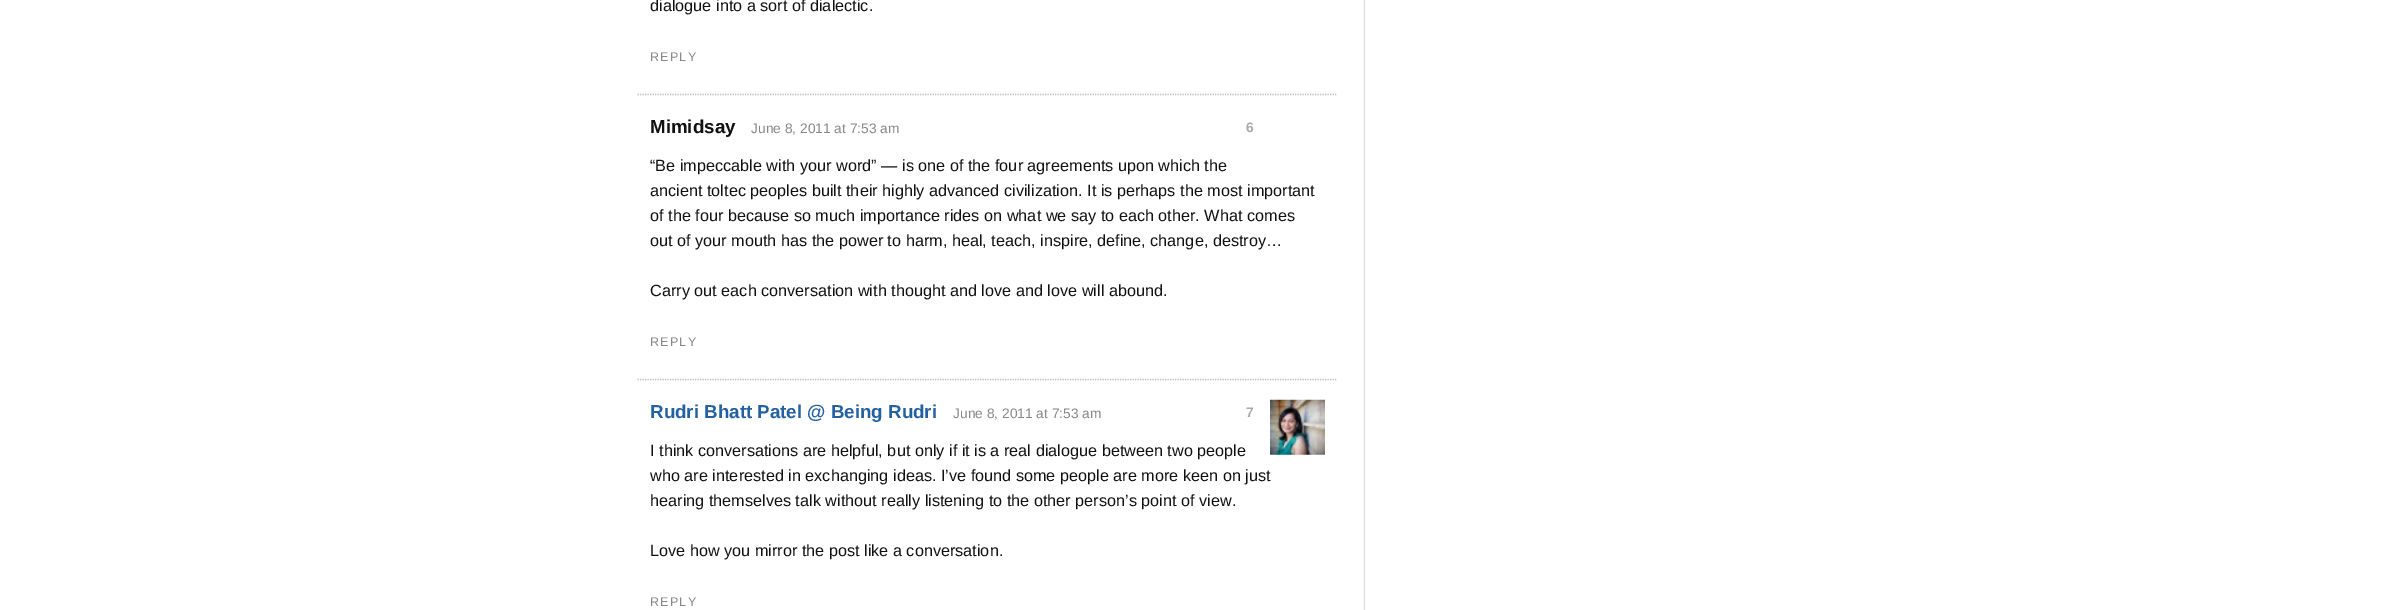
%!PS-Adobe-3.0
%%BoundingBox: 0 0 2402 610
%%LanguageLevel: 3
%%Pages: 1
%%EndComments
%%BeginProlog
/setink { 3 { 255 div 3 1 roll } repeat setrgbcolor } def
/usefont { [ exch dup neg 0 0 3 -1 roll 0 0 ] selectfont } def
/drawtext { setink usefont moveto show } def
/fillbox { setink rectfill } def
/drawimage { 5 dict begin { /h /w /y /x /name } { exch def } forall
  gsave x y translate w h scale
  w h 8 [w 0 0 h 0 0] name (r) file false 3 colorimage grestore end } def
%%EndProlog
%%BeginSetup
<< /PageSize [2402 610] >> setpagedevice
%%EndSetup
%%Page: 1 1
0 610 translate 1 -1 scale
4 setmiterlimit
0 0 2402 610 255 255 255 fillbox
(assets/img1.rgb) 1363 0 2 610 drawimage
187 187 187 setink
1.2 setlinewidth
[1.25 1.25] 0 setdash
637.5 94.5 moveto 1337.5 94.5 lineto stroke
(dialogue into a sort of dialectic.) 650 11 /LiberationSans-Regular 16.25 17 17 17 drawtext
/LiberationSans-Regular 12.5 usefont
136 136 136 setink
650 61 moveto 1.25 0 (REPLY) ashow
(Mimidsay) 650 133 /LiberationSans-Bold 18.75 17 17 17 drawtext
(June 8, 2011 at 7:53 am) 751 133 /LiberationSans-Regular 13.75 136 136 136 drawtext
(6) 1246 132 /LiberationSans-Bold 13.75 170 170 170 drawtext
187 187 187 setink
637.5 379.5 moveto 1337.5 379.5 lineto stroke
(“Be impeccable with your word” — is one of the four agreements upon which the) 650 171 /LiberationSans-Regular 16.25 17 17 17 drawtext
(ancient toltec peoples built their highly advanced civilization. It is perhaps the most important) 650 196 /LiberationSans-Regular 16.25 17 17 17 drawtext
(of the four because so much importance rides on what we say to each other. What comes) 650 221 /LiberationSans-Regular 16.25 17 17 17 drawtext
(out of your mouth has the power to harm, heal, teach, inspire, define, change, destroy…) 650 246 /LiberationSans-Regular 16.25 17 17 17 drawtext
(Carry out each conversation with thought and love and love will abound.) 650 296 /LiberationSans-Regular 16.25 17 17 17 drawtext
/LiberationSans-Regular 12.5 usefont
136 136 136 setink
650 346 moveto 1.25 0 (REPLY) ashow
(Rudri Bhatt Patel @ Being Rudri) 650 418 /LiberationSans-Bold 18.75 35 97 161 drawtext
(June 8, 2011 at 7:53 am) 953 418 /LiberationSans-Regular 13.75 136 136 136 drawtext
(7) 1246 417 /LiberationSans-Bold 13.75 170 170 170 drawtext
(assets/img2.rgb) 1270 399 55 56 drawimage
(I think conversations are helpful, but only if it is a real dialogue between two people) 650 456 /LiberationSans-Regular 16.25 17 17 17 drawtext
(who are interested in exchanging ideas. I’ve found some people are more keen on just) 650 481 /LiberationSans-Regular 16.25 17 17 17 drawtext
(hearing themselves talk without really listening to the other person’s point of view.) 650 506 /LiberationSans-Regular 16.25 17 17 17 drawtext
(Love how you mirror the post like a conversation.) 650 556 /LiberationSans-Regular 16.25 17 17 17 drawtext
/LiberationSans-Regular 12.5 usefont
136 136 136 setink
650 606 moveto 1.25 0 (REPLY) ashow
showpage
%%EOF
